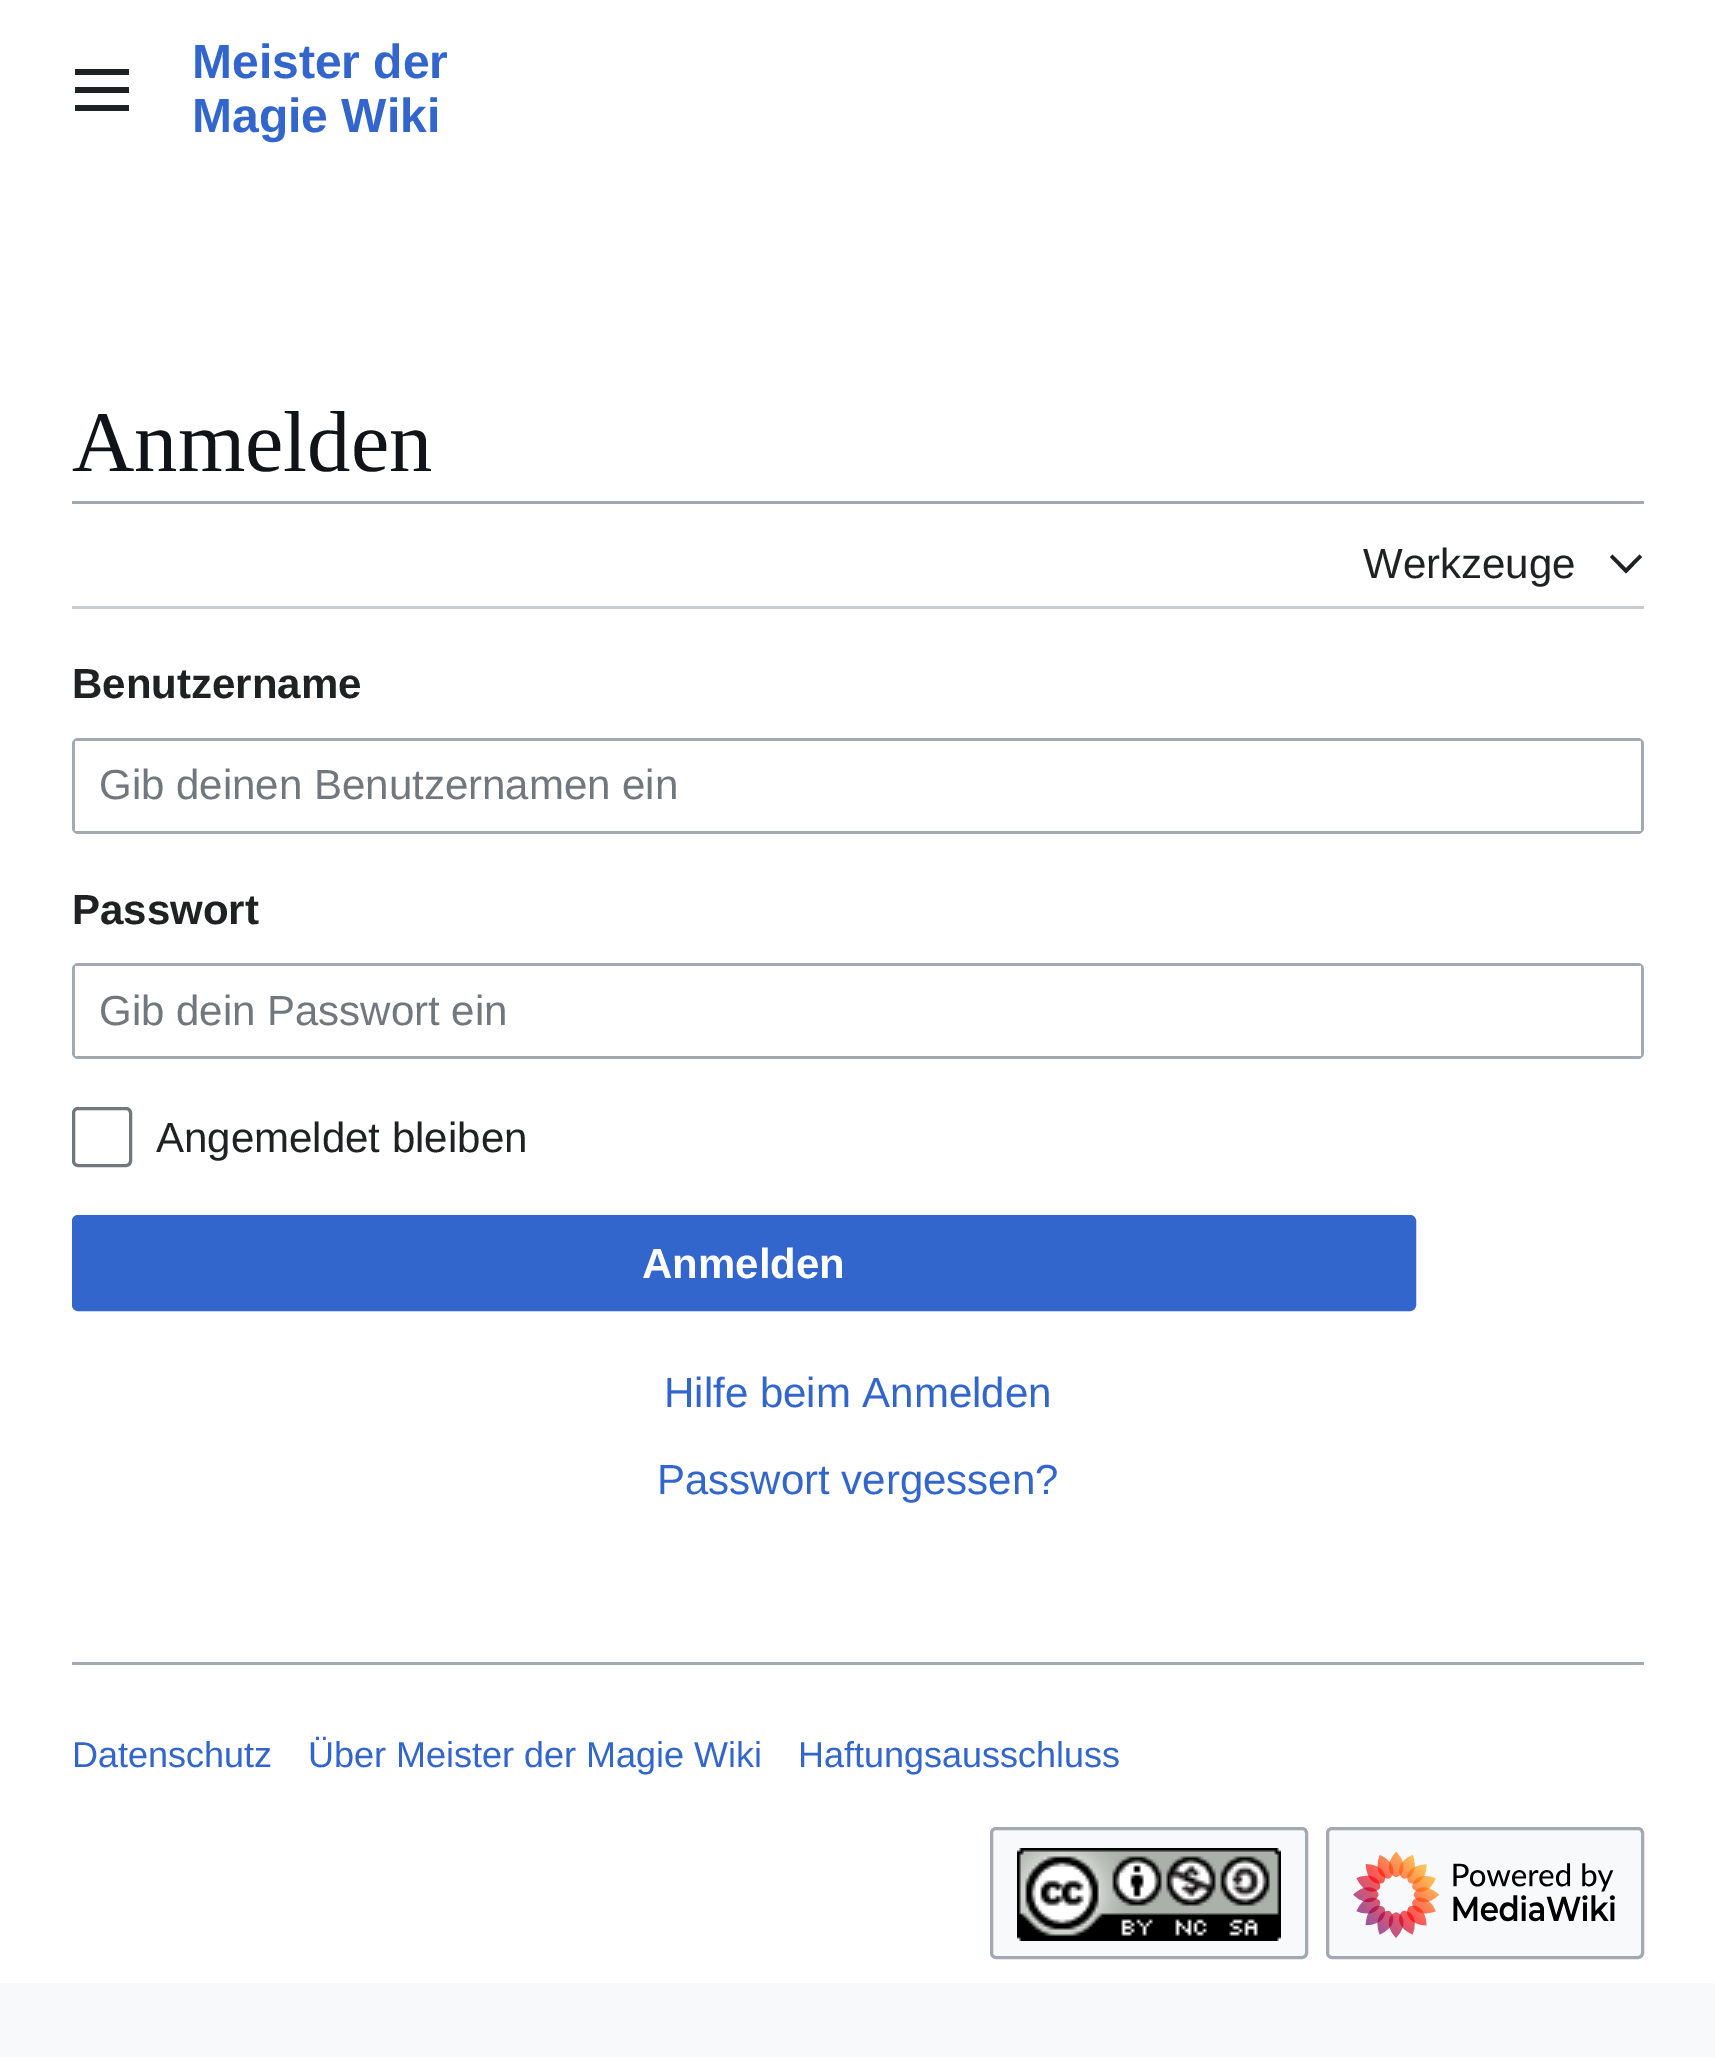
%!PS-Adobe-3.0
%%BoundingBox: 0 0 1715 2057
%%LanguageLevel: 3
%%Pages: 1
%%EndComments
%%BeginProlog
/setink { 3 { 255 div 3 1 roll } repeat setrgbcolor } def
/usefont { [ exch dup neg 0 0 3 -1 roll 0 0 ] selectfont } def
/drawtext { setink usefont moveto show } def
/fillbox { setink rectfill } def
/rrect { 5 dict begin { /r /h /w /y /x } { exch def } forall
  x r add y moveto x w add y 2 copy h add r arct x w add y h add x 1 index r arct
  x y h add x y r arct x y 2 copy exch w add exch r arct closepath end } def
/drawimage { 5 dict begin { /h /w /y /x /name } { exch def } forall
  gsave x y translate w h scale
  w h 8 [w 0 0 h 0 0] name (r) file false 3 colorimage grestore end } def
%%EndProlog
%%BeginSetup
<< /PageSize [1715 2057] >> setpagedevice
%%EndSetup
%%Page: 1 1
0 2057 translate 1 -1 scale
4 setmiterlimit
0 0 1715 2057 248 249 250 fillbox
0 0 1715 1983 255 255 255 fillbox
(assets/img1.rgb) 75 69 54 42 drawimage
(Meister der) 192 78 /LiberationSans-Bold 48 51 102 204 drawtext
(Magie Wiki) 192 132 /LiberationSans-Bold 48 51 102 204 drawtext
(Anmelden) 72 471 /LiberationSerif-Regular 86.5 16 20 24 drawtext
72 501 1572 3 162 169 177 fillbox
72 606 1572 3 200 204 209 fillbox
(Werkzeuge) 1363 578 /LiberationSans-Regular 42 32 33 34 drawtext
1639.5 554.5 moveto 1626 568 lineto 1612.5 554.5 lineto 1610 557 lineto 1626 573.5 lineto 1642 557 lineto closepath fill
(Benutzername) 72 698 /LiberationSans-Bold 42 32 33 34 drawtext
162 169 177 setink
78 738 moveto 75 738 72 741 72 744 curveto 72 828 lineto 72 831 75 834 78 834 curveto 1638 834 lineto 1641 834 1644 831 1644 828 curveto 1644 744 lineto 1644 741 1641 738 1638 738 curveto closepath 75 741 moveto 75 831 lineto 1641 831 lineto 1641 741 lineto closepath eofill
(Gib deinen Benutzernamen ein) 99 799 /LiberationSans-Regular 42 114 119 125 drawtext
(Passwort) 72 924 /LiberationSans-Bold 42 32 33 34 drawtext
162 169 177 setink
78 963 moveto 75 963 72 966 72 969 curveto 72 1053 lineto 72 1056 75 1059 78 1059 curveto 1638 1059 lineto 1641 1059 1644 1056 1644 1053 curveto 1644 969 lineto 1644 966 1641 963 1638 963 curveto closepath 75 966 moveto 75 1056 lineto 1641 1056 lineto 1641 966 lineto closepath eofill
(Gib dein Passwort ein) 99 1025 /LiberationSans-Regular 42 114 119 125 drawtext
3 setlinewidth
73.5 1108.5 57 57 4.5 rrect stroke
(Angemeldet bleiben) 156 1152 /LiberationSans-Regular 42 32 33 34 drawtext
51 102 204 setink
73.5 1216.5 1341 93 4.5 rrect gsave fill grestore
stroke
(Anmelden) 642 1278 /LiberationSans-Bold 42 255 255 255 drawtext
(Hilfe beim Anmelden) 664 1407 /LiberationSans-Regular 42 51 102 204 drawtext
(Passwort vergessen?) 657 1494 /LiberationSans-Regular 42 51 102 204 drawtext
72 1662 1572 3 162 169 177 fillbox
(Datenschutz) 72 1767 /LiberationSans-Regular 36 51 102 204 drawtext
(Über Meister der Magie Wiki) 308 1767 /LiberationSans-Regular 36 51 102 204 drawtext
(Haftungsausschluss) 798 1767 /LiberationSans-Regular 36 51 102 204 drawtext
248 249 250 setink
991.5 1828.5 315 129 4.5 rrect gsave fill grestore
162 169 177 setink
stroke
(assets/img2.rgb) 1017 1848 264 93 drawimage
248 249 250 setink
1327.5 1828.5 315 129 4.5 rrect gsave fill grestore
162 169 177 setink
stroke
(assets/img3.rgb) 1353 1851 262 87 drawimage
showpage
%%EOF
